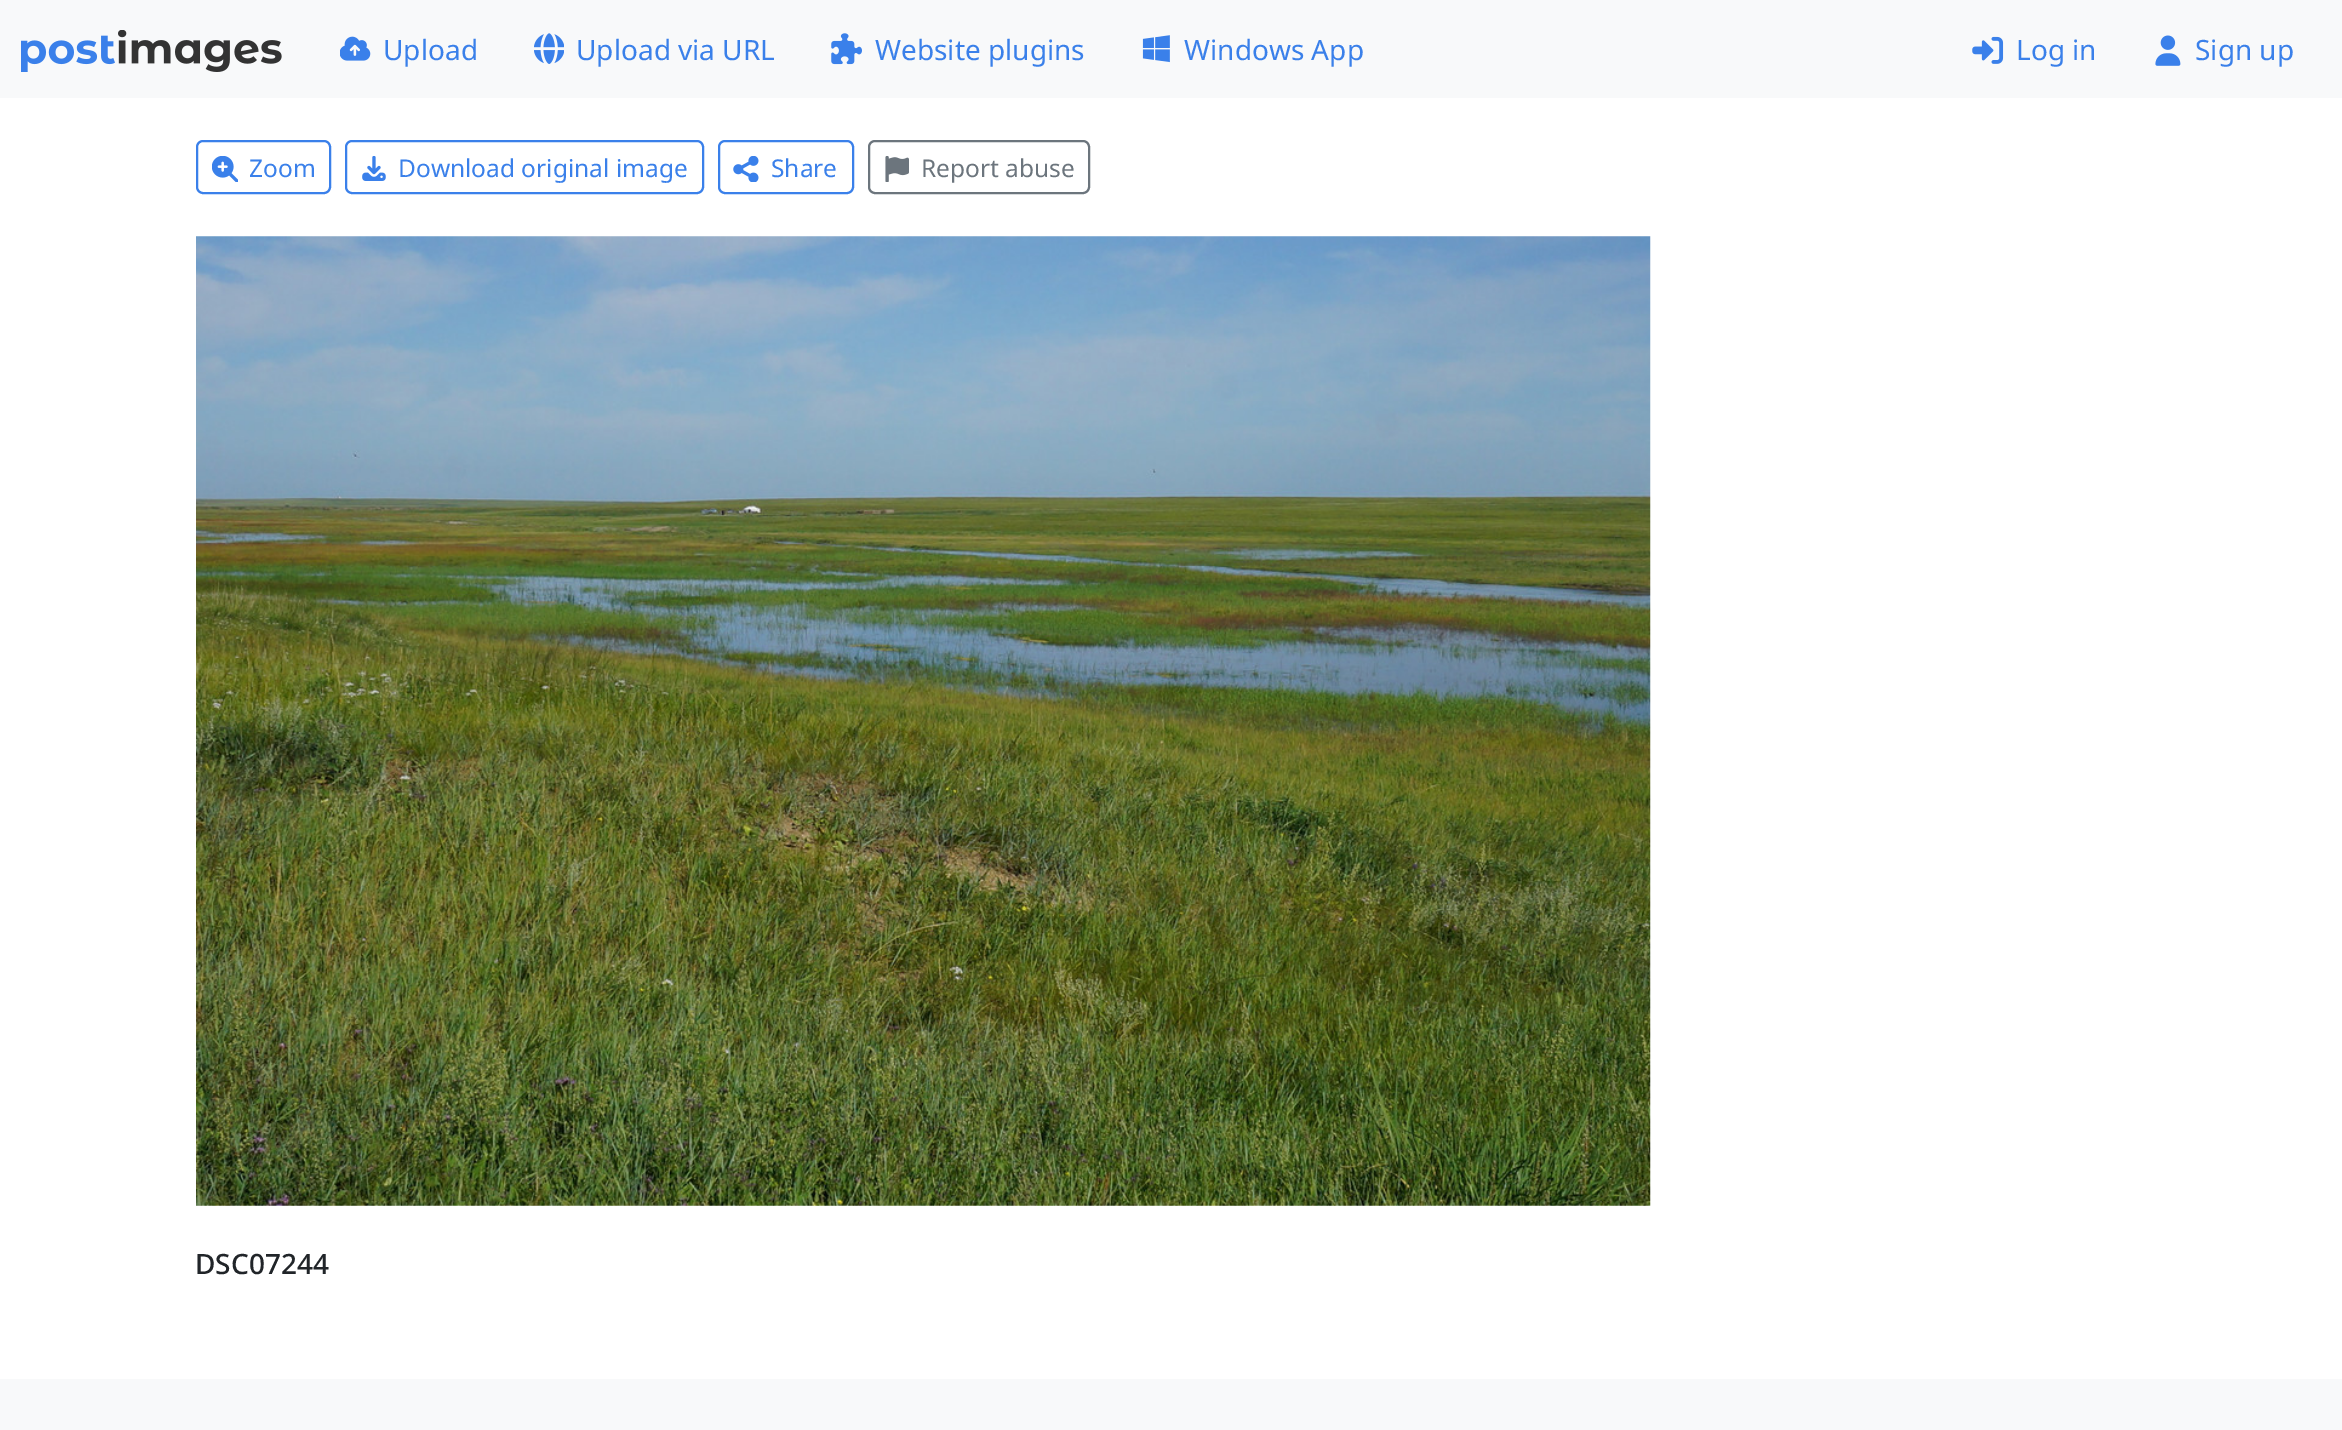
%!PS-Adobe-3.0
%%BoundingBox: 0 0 2342 1430
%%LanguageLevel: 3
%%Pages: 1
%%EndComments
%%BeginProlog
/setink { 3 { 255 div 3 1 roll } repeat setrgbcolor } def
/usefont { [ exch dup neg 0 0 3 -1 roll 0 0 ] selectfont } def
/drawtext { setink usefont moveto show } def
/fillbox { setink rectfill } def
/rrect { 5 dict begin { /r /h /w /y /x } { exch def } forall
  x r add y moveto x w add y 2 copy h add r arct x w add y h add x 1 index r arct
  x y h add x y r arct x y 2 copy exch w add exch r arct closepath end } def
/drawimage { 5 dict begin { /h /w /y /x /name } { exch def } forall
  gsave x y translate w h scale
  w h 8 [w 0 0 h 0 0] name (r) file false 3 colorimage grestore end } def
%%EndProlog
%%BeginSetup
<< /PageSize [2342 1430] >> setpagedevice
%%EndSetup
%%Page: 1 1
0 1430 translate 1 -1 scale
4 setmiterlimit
0 0 2342 1430 255 255 255 fillbox
0 0 2342 98 248 249 250 fillbox
(assets/img1.rgb) 21 30 261 42 drawimage
(assets/img2.rgb) 340 36 31 25 drawimage
(Upload) 383 60 /NotoSans-Regular 28 58 128 234 drawtext
(assets/img3.rgb) 534 33 30 31 drawimage
(Upload via URL) 576 60 /NotoSans-Regular 28 58 128 234 drawtext
(assets/img4.rgb) 831 33 31 32 drawimage
(Website plugins) 875 60 /NotoSans-Regular 28 58 128 234 drawtext
(assets/img5.rgb) 1142 35 28 28 drawimage
(Windows App) 1184 60 /NotoSans-Regular 28 58 128 234 drawtext
(assets/img6.rgb) 1972 36 32 28 drawimage
(Log in) 2016 60 /NotoSans-Regular 28 58 128 234 drawtext
(assets/img7.rgb) 2155 35 26 31 drawimage
(Sign up) 2195 60 /NotoSans-Regular 28 58 128 234 drawtext
2 setlinewidth
197 141 133 52 6 rrect stroke
(assets/img8.rgb) 212 156 26 26 drawimage
(Zoom) 249 177 /NotoSans-Regular 24.5 58 128 234 drawtext
346 141 357 52 6 rrect stroke
(assets/img9.rgb) 362 156 24 25 drawimage
(Download original image) 398 177 /NotoSans-Regular 24.5 58 128 234 drawtext
719 141 134 52 6 rrect stroke
(assets/img10.rgb) 733 156 26 26 drawimage
(Share) 771 177 /NotoSans-Regular 24.5 58 128 234 drawtext
108 117 125 setink
869 141 220 52 6 rrect stroke
(assets/img11.rgb) 885 156 24 26 drawimage
(Report abuse) 921 177 /NotoSans-Regular 24.5 108 117 125 drawtext
(assets/img12.rgb) 196 236 1455 970 drawimage
(DSC07244) 195 1274 /NotoSans-Medium 28 33 37 41 drawtext
0 1379 2342 51 248 249 250 fillbox
showpage
%%EOF
